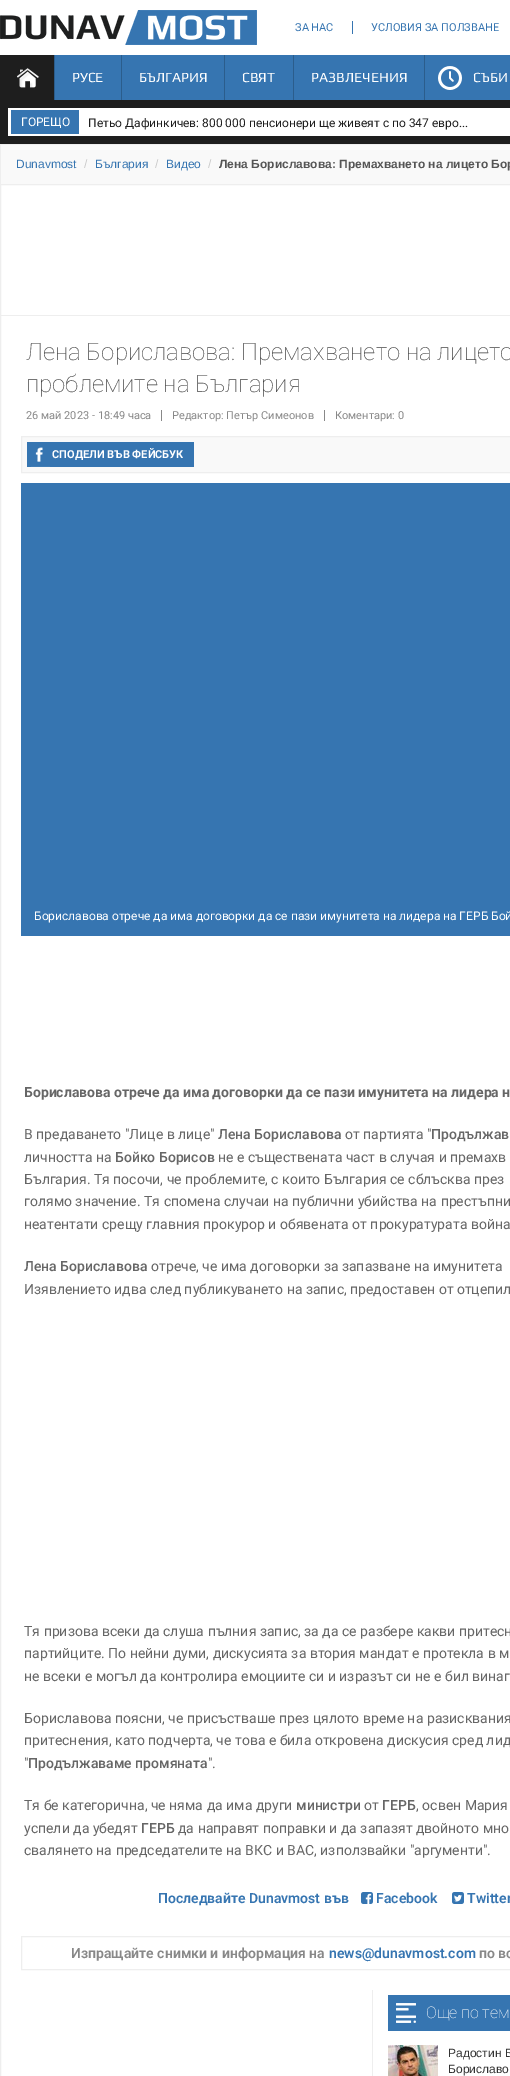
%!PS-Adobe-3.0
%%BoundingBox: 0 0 510 2076
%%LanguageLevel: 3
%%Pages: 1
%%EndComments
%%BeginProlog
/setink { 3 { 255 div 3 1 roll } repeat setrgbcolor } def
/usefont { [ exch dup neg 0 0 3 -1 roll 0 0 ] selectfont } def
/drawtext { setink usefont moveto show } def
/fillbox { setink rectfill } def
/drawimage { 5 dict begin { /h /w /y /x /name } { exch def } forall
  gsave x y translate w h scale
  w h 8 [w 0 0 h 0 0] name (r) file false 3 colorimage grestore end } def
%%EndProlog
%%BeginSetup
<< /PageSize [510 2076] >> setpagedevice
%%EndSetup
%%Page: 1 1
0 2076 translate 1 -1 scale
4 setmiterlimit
0 0 510 2076 255 255 255 fillbox
(assets/img1.rgb) 0 10 257 35 drawimage
(ЗА НАС) 295 31 /Roboto-Regular 11 54 117 177 drawtext
352 21 1 13 54 117 177 fillbox
(УСЛОВИЯ ЗА ПОЛЗВАНЕ) 371 31 /Roboto-Regular 11 54 117 177 drawtext
55 55 455 45 54 117 177 fillbox
0 55 54 45 30 30 30 fillbox
(assets/img2.rgb) 17 68 22 20 drawimage
54 55 1 45 43 93 140 fillbox
(РУСЕ) 72 82 /Play-Regular 14 255 255 255 drawtext
121 55 1 45 43 93 140 fillbox
(БЪЛГАРИЯ) 139 82 /Play-Regular 14 255 255 255 drawtext
224 55 1 45 43 93 140 fillbox
(СВЯТ) 242 82 /Play-Regular 14 255 255 255 drawtext
293 55 1 45 43 93 140 fillbox
(РАЗВЛЕЧЕНИЯ) 311 82 /Play-Regular 14 255 255 255 drawtext
(assets/img3.rgb) 438 66 24 24 drawimage
424 55 1 45 43 93 140 fillbox
(СЪБИ) 473 82 /Play-Regular 14 255 255 255 drawtext
0 100 510 44 30 30 30 fillbox
8 108 502 28 255 255 255 fillbox
11 110 68 24 54 117 177 fillbox
(ГОРЕЩО) 21 126 /Roboto-Regular 12 255 255 255 drawtext
(Петьо Дафинкичев: 800 000 пенсионери ще живеят с по 347 евро...) 88 127 /Roboto-Regular 12 30 30 30 drawtext
1 145 509 39 249 249 249 fillbox
0 144 510 1 238 238 238 fillbox
0 144 1 40 238 238 238 fillbox
(Dunavmost) 16 168 /LiberationSans-Regular 12 54 117 177 drawtext
(/) 84 168 /LiberationSans-Regular 12 204 204 204 drawtext
(България) 95 168 /LiberationSans-Regular 12 54 117 177 drawtext
(/) 155 168 /LiberationSans-Regular 12 204 204 204 drawtext
(Видео) 166 168 /LiberationSans-Regular 12 54 117 177 drawtext
(/) 208 168 /LiberationSans-Regular 12 204 204 204 drawtext
(Лена Бориславова: Премахването на лицето Бор) 219 168 /LiberationSans-Bold 12 85 85 85 drawtext
238 238 238 setink
0.5 184.5 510 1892 rectstroke
1 315 509 1 238 238 238 fillbox
(Лена Бориславова: Премахването на лицето) 26 360 /Roboto-Thin 24 68 68 68 drawtext
(проблемите на България) 26 392 /Roboto-Thin 24 68 68 68 drawtext
161 410 1 11 136 136 136 fillbox
(26 май 2023 - 18:49 часа) 26 419 /Roboto-Regular 11 136 136 136 drawtext
324 410 1 11 136 136 136 fillbox
(Редактор: Петър Симеонов) 172 419 /Roboto-Regular 11 136 136 136 drawtext
(Коментари: 0) 335 419 /Roboto-Regular 11 136 136 136 drawtext
249 249 249 setink
21.5 436.5 moveto 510.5 436.5 lineto 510.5 472.5 lineto 21.5 472.5 lineto closepath gsave fill grestore
238 238 238 setink
stroke
27 442 167 25 54 117 177 fillbox
(assets/img4.rgb) 31 447 19 20 drawimage
(СПОДЕЛИ ВЪВ ФЕЙСБУК) 52 458 /Roboto-Bold 11 255 255 255 drawtext
21 483 489 453 54 117 177 fillbox
(Бориславова отрече да има договорки да се пази имунитета на лидера на ГЕРБ Бой) 34 920 /Roboto-Regular 12 255 255 255 drawtext
(Бориславова отрече да има договорки да се пази имунитета на лидера н) 24 1097 /Roboto-Bold 14 102 102 102 drawtext
(В предаването "Лице в лице") 24 1139 /Roboto-Regular 14 102 102 102 drawtext
(Лена Бориславова) 218 1139 /Roboto-Medium 14 102 102 102 drawtext
(от партията ") 345 1139 /Roboto-Regular 14 102 102 102 drawtext
(Продължав) 431 1139 /Roboto-Medium 14 102 102 102 drawtext
(личността на) 24 1162 /Roboto-Regular 14 102 102 102 drawtext
(Бойко Борисов) 115 1162 /Roboto-Medium 14 102 102 102 drawtext
(не е съществената част в случая и премахв) 218 1162 /Roboto-Regular 14 102 102 102 drawtext
(България. Тя посочи, че проблемите, с които България се сблъсква през) 24 1184 /Roboto-Regular 14 102 102 102 drawtext
(голямо значение. Тя спомена случаи на публични убийства на престъпни) 24 1206 /Roboto-Regular 14 102 102 102 drawtext
(неатентати срещу главния прокурор и обявената от прокуратурата война) 24 1229 /Roboto-Regular 14 102 102 102 drawtext
(Лена Бориславова) 24 1271 /Roboto-Medium 14 102 102 102 drawtext
(отрече, че има договорки за запазване на имунитета) 151 1271 /Roboto-Regular 14 102 102 102 drawtext
(Изявлението идва след публикуването на запис, предоставен от отцепил) 24 1294 /Roboto-Regular 14 102 102 102 drawtext
(Тя призова всеки да слуша пълния запис, за да се разбере какви притесн) 24 1636 /Roboto-Regular 14 102 102 102 drawtext
(партийците. По нейни думи, дискусията за втория мандат е протекла в м) 24 1658 /Roboto-Regular 14 102 102 102 drawtext
(не всеки е могъл да контролира емоциите си и изразът си не е бил винаг) 24 1681 /Roboto-Regular 14 102 102 102 drawtext
(Бориславова поясни, че присъстваше през цялото време на разисквания) 24 1723 /Roboto-Regular 14 102 102 102 drawtext
(притеснения, като подчерта, че това е била откровена дискусия сред лид) 24 1745 /Roboto-Regular 14 102 102 102 drawtext
(") 24 1768 /Roboto-Regular 14 102 102 102 drawtext
(Продължаваме промяната) 28 1768 /Roboto-Medium 14 102 102 102 drawtext
(".) 208 1768 /Roboto-Regular 14 102 102 102 drawtext
(Тя бе категорична, че няма да има други) 24 1810 /Roboto-Regular 14 102 102 102 drawtext
(министри) 296 1810 /Roboto-Medium 14 102 102 102 drawtext
(от) 364 1810 /Roboto-Regular 14 102 102 102 drawtext
(ГЕРБ) 382 1810 /Roboto-Medium 14 102 102 102 drawtext
(, освен Мария) 416 1810 /Roboto-Regular 14 102 102 102 drawtext
(успели да убедят) 24 1833 /Roboto-Regular 14 102 102 102 drawtext
(ГЕРБ) 141 1833 /Roboto-Medium 14 102 102 102 drawtext
(да направят поправки и да запазят двойното мно) 178 1833 /Roboto-Regular 14 102 102 102 drawtext
(свалянето на председателите на ВКС и ВАС, използвайки "аргументи".) 24 1855 /Roboto-Regular 14 102 102 102 drawtext
(Последвайте Dunavmost във) 158 1903 /Roboto-SemiBold 14 54 117 177 drawtext
(assets/img5.rgb) 361 1892 12 12 drawimage
(Facebook) 376 1903 /Roboto-SemiBold 14 54 117 177 drawtext
(assets/img6.rgb) 452 1892 12 12 drawimage
(Twitter) 467 1903 /Roboto-SemiBold 14 54 117 177 drawtext
238 238 238 setink
21.5 1936.5 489 33 rectstroke
(Изпращайте снимки и информация на) 71 1958 /Roboto-SemiBold 14 136 136 136 drawtext
(news@dunavmost.com) 329 1958 /Roboto-SemiBold 14 54 117 177 drawtext
(по вс) 479 1958 /Roboto-SemiBold 14 136 136 136 drawtext
372 1990 1 86 238 238 238 fillbox
388 1995 122 36 54 117 177 fillbox
(assets/img7.rgb) 396 2003 20 20 drawimage
(Още по тем) 426 2018 /Roboto-Thin 16 255 255 255 drawtext
(assets/img8.rgb) 388 2045 50 31 drawimage
(Радостин В) 448 2057 /LiberationSans-Regular 12 51 51 51 drawtext
(Бориславо) 448 2073 /LiberationSans-Regular 12 51 51 51 drawtext
showpage
%%EOF
